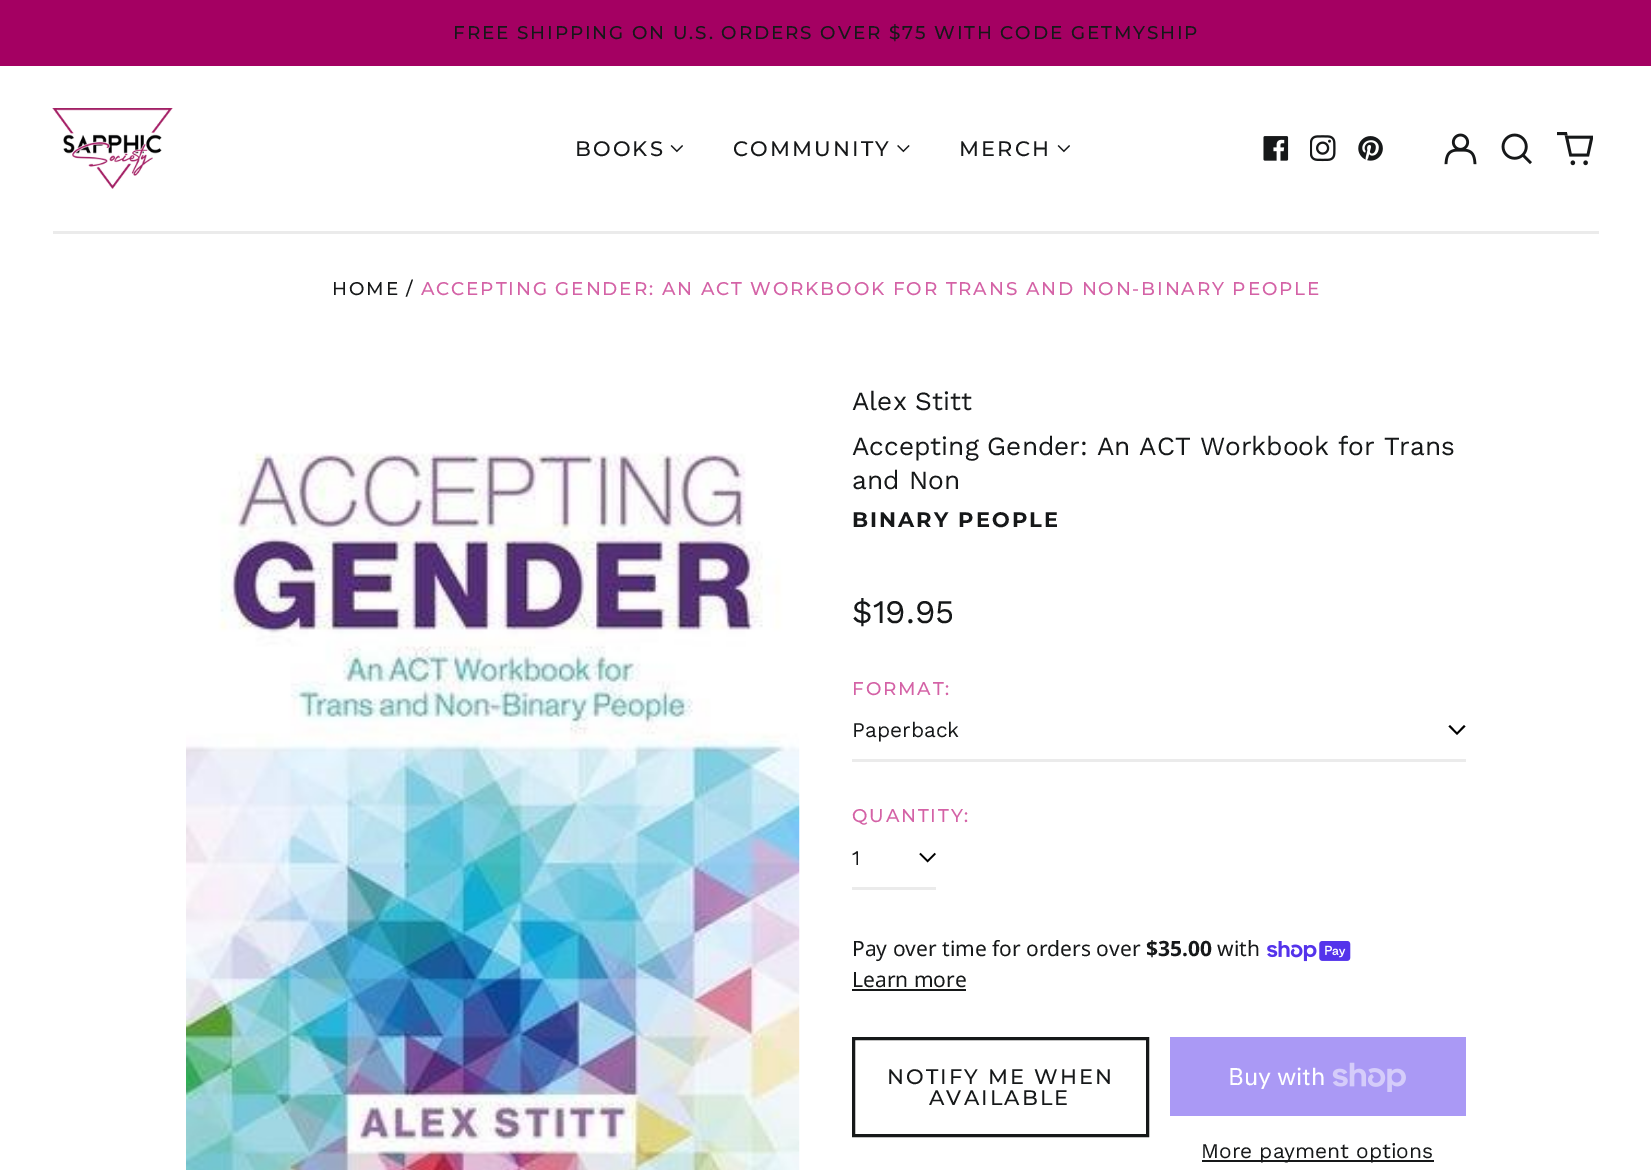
%!PS-Adobe-3.0
%%BoundingBox: 0 0 1651 1170
%%LanguageLevel: 3
%%Pages: 1
%%EndComments
%%BeginProlog
/setink { 3 { 255 div 3 1 roll } repeat setrgbcolor } def
/usefont { [ exch dup neg 0 0 3 -1 roll 0 0 ] selectfont } def
/drawtext { setink usefont moveto show } def
/fillbox { setink rectfill } def
/drawimage { 5 dict begin { /h /w /y /x /name } { exch def } forall
  gsave x y translate w h scale
  w h 8 [w 0 0 h 0 0] name (r) file false 3 colorimage grestore end } def
%%EndProlog
%%BeginSetup
<< /PageSize [1651 1170] >> setpagedevice
%%EndSetup
%%Page: 1 1
0 1170 translate 1 -1 scale
4 setmiterlimit
0 0 1651 1170 255 255 255 fillbox
0 0 1651 66 164 0 98 fillbox
/Montserrat-Medium 18.4 usefont
22 24 25 setink
453 39 moveto 1.85 0 (FREE SHIPPING ON U.S. ORDERS OVER $75 WITH CODE GETMYSHIP) ashow
53 231 1546 3 235 235 235 fillbox
(assets/img1.rgb) 52 108 121 81 drawimage
/Montserrat-Medium 21 usefont
22 24 25 setink
575 156 moveto 2.1 0 (BOOKS) ashow
(assets/img2.rgb) 670 145 13 8 drawimage
733 156 moveto 2.1 0 (COMMUNITY) ashow
(assets/img3.rgb) 897 145 13 8 drawimage
959 156 moveto 2.1 0 (MERCH) ashow
(assets/img2.rgb) 1057 145 13 8 drawimage
(assets/img4.rgb) 1263 136 26 25 drawimage
(assets/img5.rgb) 1310 135 26 27 drawimage
(assets/img6.rgb) 1358 136 25 25 drawimage
(assets/img7.rgb) 1444 133 33 32 drawimage
(assets/img8.rgb) 1501 133 31 32 drawimage
(assets/img9.rgb) 1557 132 36 34 drawimage
/Montserrat-Medium 18.4 usefont
332 295 moveto 1.85 0 (HOME /) ashow
212 98 166 setink
421 295 moveto 1.85 0 (ACCEPTING GENDER: AN ACT WORKBOOK FOR TRANS AND NON-BINARY PEOPLE) ashow
(assets/img10.rgb) 186 452 614 718 drawimage
(Alex Stitt) 852 410 /WorkSans-Regular 26.25 22 24 25 drawtext
(Accepting Gender: An ACT Workbook for Trans) 852 455 /WorkSans-Regular 26.25 22 24 25 drawtext
(and Non) 852 489 /WorkSans-Regular 26.25 22 24 25 drawtext
/Montserrat-Bold 21 usefont
852 527 moveto 2.1 0 (BINARY PEOPLE) ashow
($19.95) 852 623 /WorkSans-Regular 33 22 24 25 drawtext
/Montserrat-Medium 18.4 usefont
212 98 166 setink
852 695 moveto 1.85 0 (FORMAT:) ashow
0 0 0 setink
1464 725 moveto 1465.5 726.5 lineto 1457 735 lineto 1448.5 726.5 lineto 1450 725 lineto 1457 732.5 lineto closepath eofill
852 759 614 3 235 235 235 fillbox
(Paperback) 852 737 /WorkSans-Regular 21 22 24 25 drawtext
/Montserrat-Medium 18.4 usefont
212 98 166 setink
852 822 moveto 1.85 0 (QUANTITY:) ashow
(assets/img11.rgb) 919 852 17 11 drawimage
852 887 84 3 235 235 235 fillbox
(1) 852 865 /WorkSans-Regular 21 22 24 25 drawtext
(Pay over time for orders over) 852 956 /NotoSans-Regular 21 22 24 25 drawtext
($35.00) 1146 956 /NotoSans-Bold 21 22 24 25 drawtext
(with) 1217 956 /NotoSans-Regular 21 22 24 25 drawtext
(assets/img12.rgb) 1267 941 84 21 drawimage
(Learn more) 852 987 /NotoSans-Regular 21 22 24 25 drawtext
852 989 114 2 22 24 25 fillbox
3 setlinewidth
853.5 1038.5 294 97 rectstroke
/Montserrat-Medium 21 usefont
887 1084 moveto 2.1 0 (NOTIFY ME WHEN) ashow
929 1105 moveto 2.1 0 (AVAILABLE) ashow
1170 1037 296 79 170 153 245 fillbox
(Buy with) 1228 1085 /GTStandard-Regular 24 255 255 255 drawtext
(assets/img13.rgb) 1332 1062 74 30 drawimage
1202 1160 232 2 22 24 25 fillbox
(More payment options) 1201 1158 /WorkSans-Regular 21 22 24 25 drawtext
showpage
%%EOF
